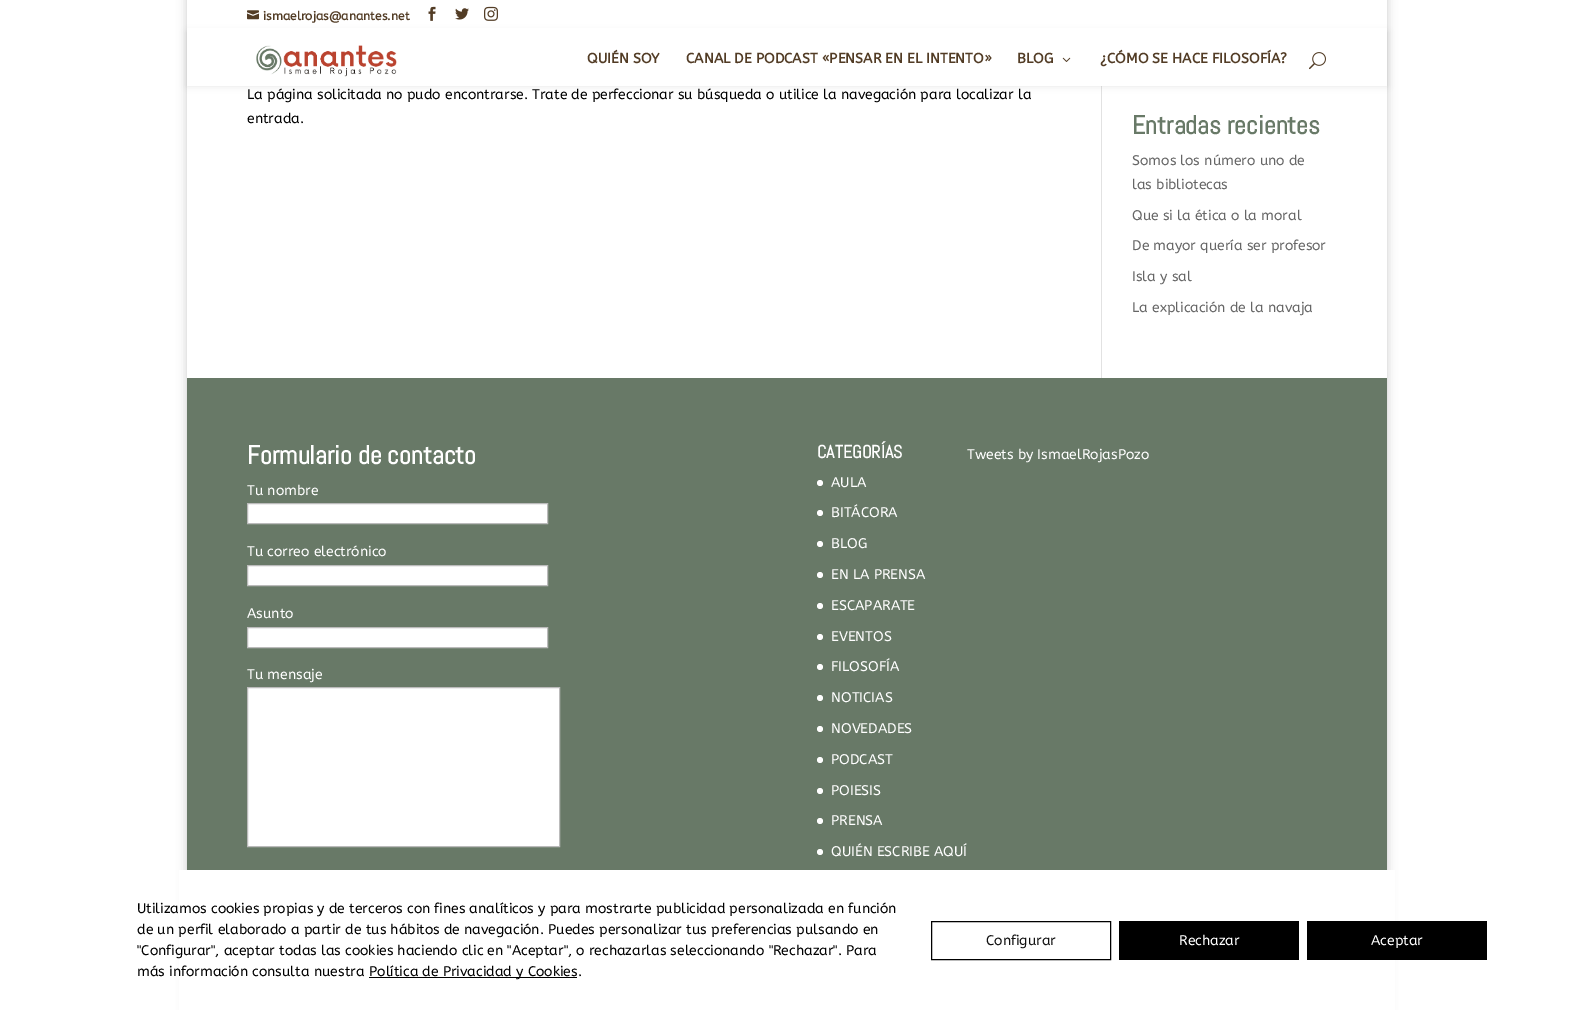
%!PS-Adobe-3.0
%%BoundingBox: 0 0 1574 1010
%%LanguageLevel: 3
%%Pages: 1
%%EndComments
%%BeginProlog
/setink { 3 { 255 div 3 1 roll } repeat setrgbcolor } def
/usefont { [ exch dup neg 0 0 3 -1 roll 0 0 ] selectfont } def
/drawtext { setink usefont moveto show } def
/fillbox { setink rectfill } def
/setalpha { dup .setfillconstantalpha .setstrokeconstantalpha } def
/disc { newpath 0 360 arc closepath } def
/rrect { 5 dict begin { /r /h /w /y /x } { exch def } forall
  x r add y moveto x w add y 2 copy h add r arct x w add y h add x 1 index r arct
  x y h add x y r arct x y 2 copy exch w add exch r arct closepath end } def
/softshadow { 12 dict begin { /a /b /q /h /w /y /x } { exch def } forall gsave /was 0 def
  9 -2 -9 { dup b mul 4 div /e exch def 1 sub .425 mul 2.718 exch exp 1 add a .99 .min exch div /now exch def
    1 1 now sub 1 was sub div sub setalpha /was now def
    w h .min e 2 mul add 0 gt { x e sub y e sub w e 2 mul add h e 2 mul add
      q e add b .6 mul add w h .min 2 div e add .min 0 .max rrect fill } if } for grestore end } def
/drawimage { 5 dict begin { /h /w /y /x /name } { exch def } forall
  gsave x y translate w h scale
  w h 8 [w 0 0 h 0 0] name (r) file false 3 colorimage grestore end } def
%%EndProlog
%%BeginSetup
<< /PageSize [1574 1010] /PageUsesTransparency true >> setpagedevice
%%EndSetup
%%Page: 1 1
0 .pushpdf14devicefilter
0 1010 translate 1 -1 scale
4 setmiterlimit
0 0 1574 1010 255 255 255 fillbox
gsave
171 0 moveto 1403 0 lineto 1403 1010 lineto 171 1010 lineto closepath 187 -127 moveto 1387 -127 lineto 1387 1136 lineto 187 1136 lineto closepath eoclip newpath
0 0 0 setink
187 -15 1200 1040 0 5 0.2 softshadow
grestore
(assets/img1.rgb) 247 10 12 10 drawimage
1101 86 1 292 226 226 226 fillbox
0 0 0 setink
187 32 1200 54 0 3.5 0.1 softshadow
(ismaelrojas@anantes.net) 263 20 /ABeeZee-Bold 12 82 60 37 drawtext
(assets/img2.rgb) 428 6 8 15 drawimage
(assets/img3.rgb) 455 8 14 12 drawimage
(assets/img4.rgb) 484 6 14 15 drawimage
187 28 1200 58 255 255 255 fillbox
(assets/img5.rgb) 256 45 141 32 drawimage
(QUIÉN SOY) 587 63 /ABeeZee-Bold 14 82 60 37 drawtext
(CANAL DE PODCAST «PENSAR EN EL INTENTO») 686 63 /ABeeZee-Bold 14 82 60 37 drawtext
(BLOG) 1017 63 /ABeeZee-Bold 14 82 60 37 drawtext
(assets/img6.rgb) 1062 57 9 5 drawimage
(¿CÓMO SE HACE FILOSOFÍA?) 1100 63 /ABeeZee-Bold 14 82 60 37 drawtext
(assets/img7.rgb) 1309 52 17 18 drawimage
(La página solicitada no pudo encontrarse. Trate de perfeccionar su búsqueda o utilice la navegación para localizar la) 247 99 /ABeeZee-Regular 14 0 0 0 drawtext
(entrada.) 247 123 /ABeeZee-Regular 14 0 0 0 drawtext
(Entradas recientes) 1132 134 /Abel-Bold 26 104 121 103 drawtext
(Somos los número uno de) 1132 165 /ABeeZee-Regular 14 102 102 102 drawtext
(las bibliotecas) 1132 189 /ABeeZee-Regular 14 102 102 102 drawtext
(Que si la ética o la moral) 1132 220 /ABeeZee-Regular 14 102 102 102 drawtext
(De mayor quería ser profesor) 1132 250 /ABeeZee-Regular 14 102 102 102 drawtext
(Isla y sal) 1132 281 /ABeeZee-Regular 14 102 102 102 drawtext
(La explicación de la navaja) 1132 312 /ABeeZee-Regular 14 102 102 102 drawtext
187 378 1200 492 104 121 103 fillbox
(Formulario de contacto) 247 464 /Abel-Bold 26 255 255 255 drawtext
(Tu nombre) 247 495 /ABeeZee-Regular 14 255 255 255 drawtext
247.5 503.5 moveto 547.5 503.5 lineto 547.5 523.5 lineto 247.5 523.5 lineto closepath gsave fill grestore
187 187 187 setink
stroke
(Tu correo electrónico) 247 556 /ABeeZee-Regular 14 255 255 255 drawtext
247.5 565.5 moveto 547.5 565.5 lineto 547.5 585.5 lineto 247.5 585.5 lineto closepath gsave fill grestore
187 187 187 setink
stroke
(Asunto) 247 618 /ABeeZee-Regular 14 255 255 255 drawtext
247.5 627.5 moveto 547.5 627.5 lineto 547.5 647.5 lineto 247.5 647.5 lineto closepath gsave fill grestore
187 187 187 setink
stroke
(Tu mensaje) 247 679 /ABeeZee-Regular 14 255 255 255 drawtext
247.5 687.5 moveto 559.5 687.5 lineto 559.5 846.5 lineto 247.5 846.5 lineto closepath gsave fill grestore
187 187 187 setink
stroke
(CATEGORÍAS) 817 458 /Abel-Bold 18 255 255 255 drawtext
820 483 3 disc fill
(AULA) 831 487 /ABeeZee-Regular 14 255 255 255 drawtext
820 513 3 disc fill
(BITÁCORA) 831 517 /ABeeZee-Regular 14 255 255 255 drawtext
820 544 3 disc fill
(BLOG) 831 548 /ABeeZee-Regular 14 255 255 255 drawtext
820 575 3 disc fill
(EN LA PRENSA) 831 579 /ABeeZee-Regular 14 255 255 255 drawtext
820 606 3 disc fill
(ESCAPARATE) 831 610 /ABeeZee-Regular 14 255 255 255 drawtext
820 637 3 disc fill
(EVENTOS) 831 641 /ABeeZee-Regular 14 255 255 255 drawtext
820 667 3 disc fill
(FILOSOFÍA) 831 671 /ABeeZee-Regular 14 255 255 255 drawtext
820 698 3 disc fill
(NOTICIAS) 831 702 /ABeeZee-Regular 14 255 255 255 drawtext
820 729 3 disc fill
(NOVEDADES) 831 733 /ABeeZee-Regular 14 255 255 255 drawtext
820 760 3 disc fill
(PODCAST) 831 764 /ABeeZee-Regular 14 255 255 255 drawtext
820 791 3 disc fill
(POIESIS) 831 795 /ABeeZee-Regular 14 255 255 255 drawtext
820 821 3 disc fill
(PRENSA) 831 825 /ABeeZee-Regular 14 255 255 255 drawtext
820 852 3 disc fill
(QUIÉN ESCRIBE AQUÍ) 831 856 /ABeeZee-Regular 14 255 255 255 drawtext
(Tweets by IsmaelRojasPozo) 967 459 /ABeeZee-Regular 14 255 255 255 drawtext
179 870 1216 140 255 255 255 fillbox
(Utilizamos cookies propias y de terceros con fines analíticos y para mostrarte publicidad personalizada en función) 137 913 /ABeeZee-Regular 14 0 0 0 drawtext
(de un perfil elaborado a partir de tus hábitos de navegación. Puedes personalizar tus preferencias pulsando en) 137 934 /ABeeZee-Regular 14 0 0 0 drawtext
("Configurar", aceptar todas las cookies haciendo clic en "Aceptar", o rechazarlas seleccionando "Rechazar". Para) 137 955 /ABeeZee-Regular 14 0 0 0 drawtext
(más información consulta nuestra) 137 976 /ABeeZee-Regular 14 0 0 0 drawtext
369 977 208 1 0 0 0 fillbox
(Política de Privacidad y Cookies.) 369 976 /ABeeZee-Regular 14 0 0 0 drawtext
931.5 921.5 179 38 rectstroke
(Configurar) 986 945 /ABeeZee-Regular 14 17 17 17 drawtext
1119 921 180 39 0 0 0 fillbox
(Rechazar) 1179 945 /ABeeZee-Regular 14 255 255 255 drawtext
1307 921 180 39 0 0 0 fillbox
(Aceptar) 1371 945 /ABeeZee-Regular 14 255 255 255 drawtext
.poppdf14devicefilter showpage
%%EOF
